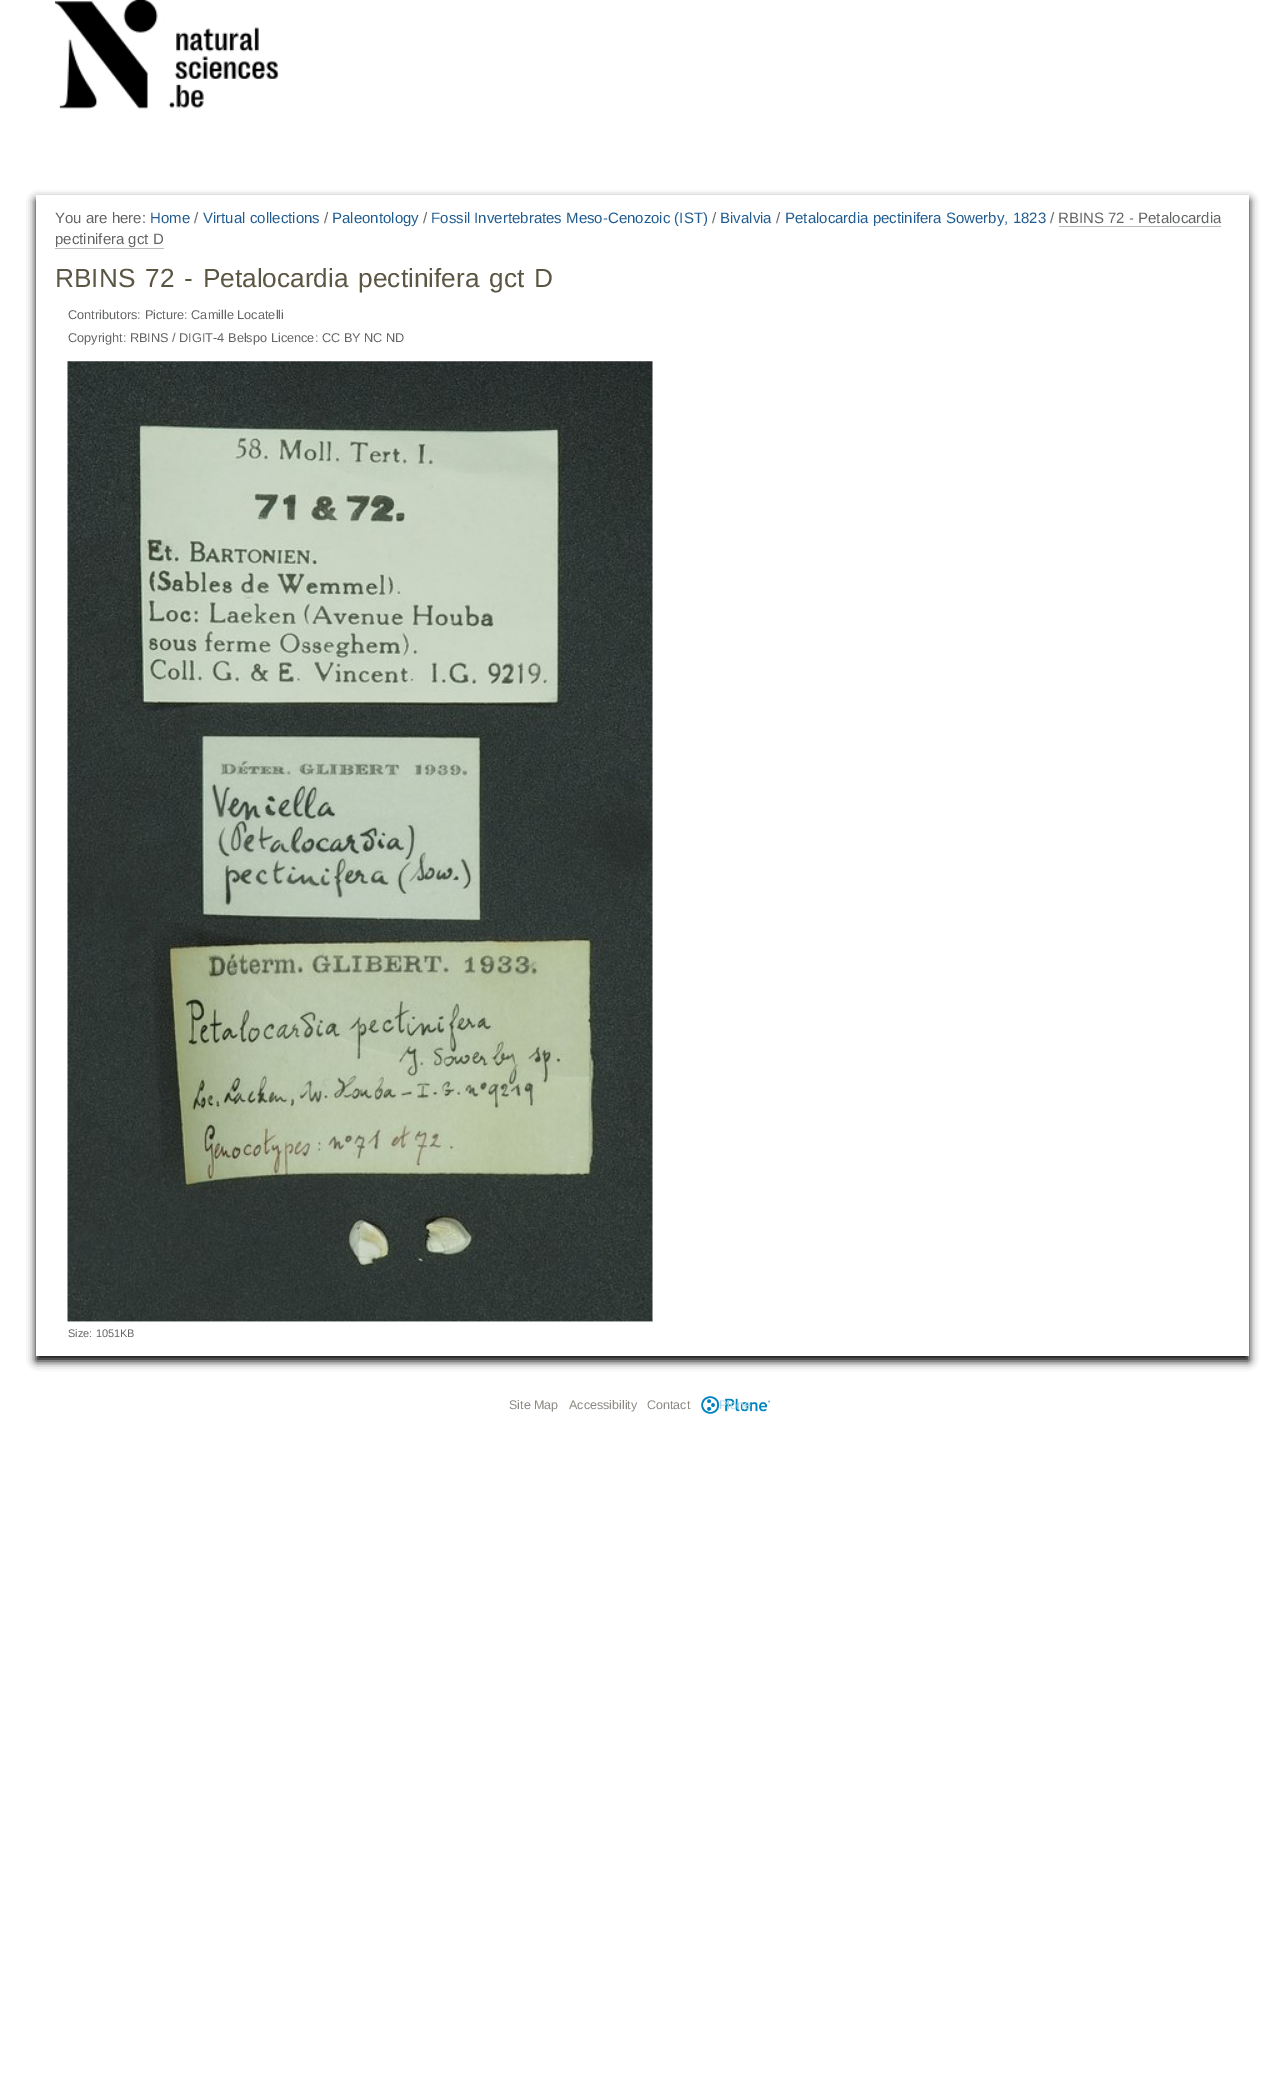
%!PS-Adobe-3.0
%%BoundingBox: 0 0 1284 2095
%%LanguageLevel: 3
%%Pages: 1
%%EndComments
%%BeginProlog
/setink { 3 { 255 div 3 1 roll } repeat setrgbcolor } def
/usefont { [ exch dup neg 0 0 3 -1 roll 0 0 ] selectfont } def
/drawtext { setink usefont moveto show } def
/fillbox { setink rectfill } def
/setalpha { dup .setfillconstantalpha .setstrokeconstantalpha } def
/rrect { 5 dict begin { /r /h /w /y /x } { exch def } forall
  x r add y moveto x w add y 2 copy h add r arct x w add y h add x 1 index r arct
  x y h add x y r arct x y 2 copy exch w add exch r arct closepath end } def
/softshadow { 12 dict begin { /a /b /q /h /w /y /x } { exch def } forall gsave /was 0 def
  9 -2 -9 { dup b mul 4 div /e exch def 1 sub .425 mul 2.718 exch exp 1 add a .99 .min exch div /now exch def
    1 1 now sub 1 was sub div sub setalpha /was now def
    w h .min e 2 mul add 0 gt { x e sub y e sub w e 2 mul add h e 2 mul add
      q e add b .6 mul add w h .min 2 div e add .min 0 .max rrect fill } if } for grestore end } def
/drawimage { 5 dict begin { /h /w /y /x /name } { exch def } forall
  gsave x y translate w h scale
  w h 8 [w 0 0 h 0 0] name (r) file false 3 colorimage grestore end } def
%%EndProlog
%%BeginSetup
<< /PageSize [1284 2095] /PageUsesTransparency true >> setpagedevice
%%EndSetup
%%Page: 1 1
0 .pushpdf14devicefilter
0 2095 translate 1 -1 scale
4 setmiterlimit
0 0 1284 2095 255 255 255 fillbox
(assets/img1.rgb) 55 0 224 109 drawimage
0 0 0 setink
36 200 1213 1161 0 4.5 1 softshadow
36 195 1213 1161 255 255 255 fillbox
(You are here:) 55 223 /LiberationSans-Regular 15 99 100 102 drawtext
(Home) 150 223 /LiberationSans-Regular 15 32 92 144 drawtext
(/) 194 223 /LiberationSans-Regular 15 99 100 102 drawtext
(Virtual collections) 203 223 /LiberationSans-Regular 15 32 92 144 drawtext
(/) 324 223 /LiberationSans-Regular 15 99 100 102 drawtext
(Paleontology) 332 223 /LiberationSans-Regular 15 32 92 144 drawtext
(/) 423 223 /LiberationSans-Regular 15 99 100 102 drawtext
(Fossil Invertebrates Meso-Cenozoic \(IST\)) 431 223 /LiberationSans-Regular 15 32 92 144 drawtext
(/) 712 223 /LiberationSans-Regular 15 99 100 102 drawtext
(Bivalvia) 720 223 /LiberationSans-Regular 15 32 92 144 drawtext
(/) 776 223 /LiberationSans-Regular 15 99 100 102 drawtext
(Petalocardia pectinifera Sowerby, 1823) 785 223 /LiberationSans-Regular 15 32 92 144 drawtext
(/) 1050 223 /LiberationSans-Regular 15 99 100 102 drawtext
(RBINS 72 - Petalocardia) 1058 223 /LiberationSans-Regular 15 99 100 102 drawtext
1059 226 162 1 187 187 187 fillbox
(pectinifera gct D) 55 244 /LiberationSans-Regular 15 99 100 102 drawtext
55 248 109 1 187 187 187 fillbox
/LiberationSans-Regular 26.25 usefont
91 86 68 setink
55 287 moveto 2.5 0 32 (RBINS 72 - Petalocardia pectinifera gct D) widthshow
(Contributors: Picture: Camille Locatelli) 68 319 /LiberationSans-Regular 12.75 99 100 102 drawtext
(Copyright: RBINS / DIGIT-4 Belspo Licence: CC BY NC ND) 68 342 /LiberationSans-Regular 12.75 99 100 102 drawtext
68 1321 585 1 204 204 204 fillbox
(assets/img2.rgb) 67 361 586 961 drawimage
(Size: 1051KB) 68 1337 /LiberationSans-Regular 11 99 100 102 drawtext
(Site Map) 509 1409 /LiberationSans-Regular 12.5 140 136 130 drawtext
(Accessibility) 569 1409 /LiberationSans-Regular 12.5 140 136 130 drawtext
(Contact) 647 1409 /LiberationSans-Regular 12.5 140 136 130 drawtext
(assets/img3.rgb) 701 1396 69 18 drawimage
(Plone) 719 1409 /LiberationSans-Regular 12.5 171 214 233 drawtext
.poppdf14devicefilter showpage
%%EOF
